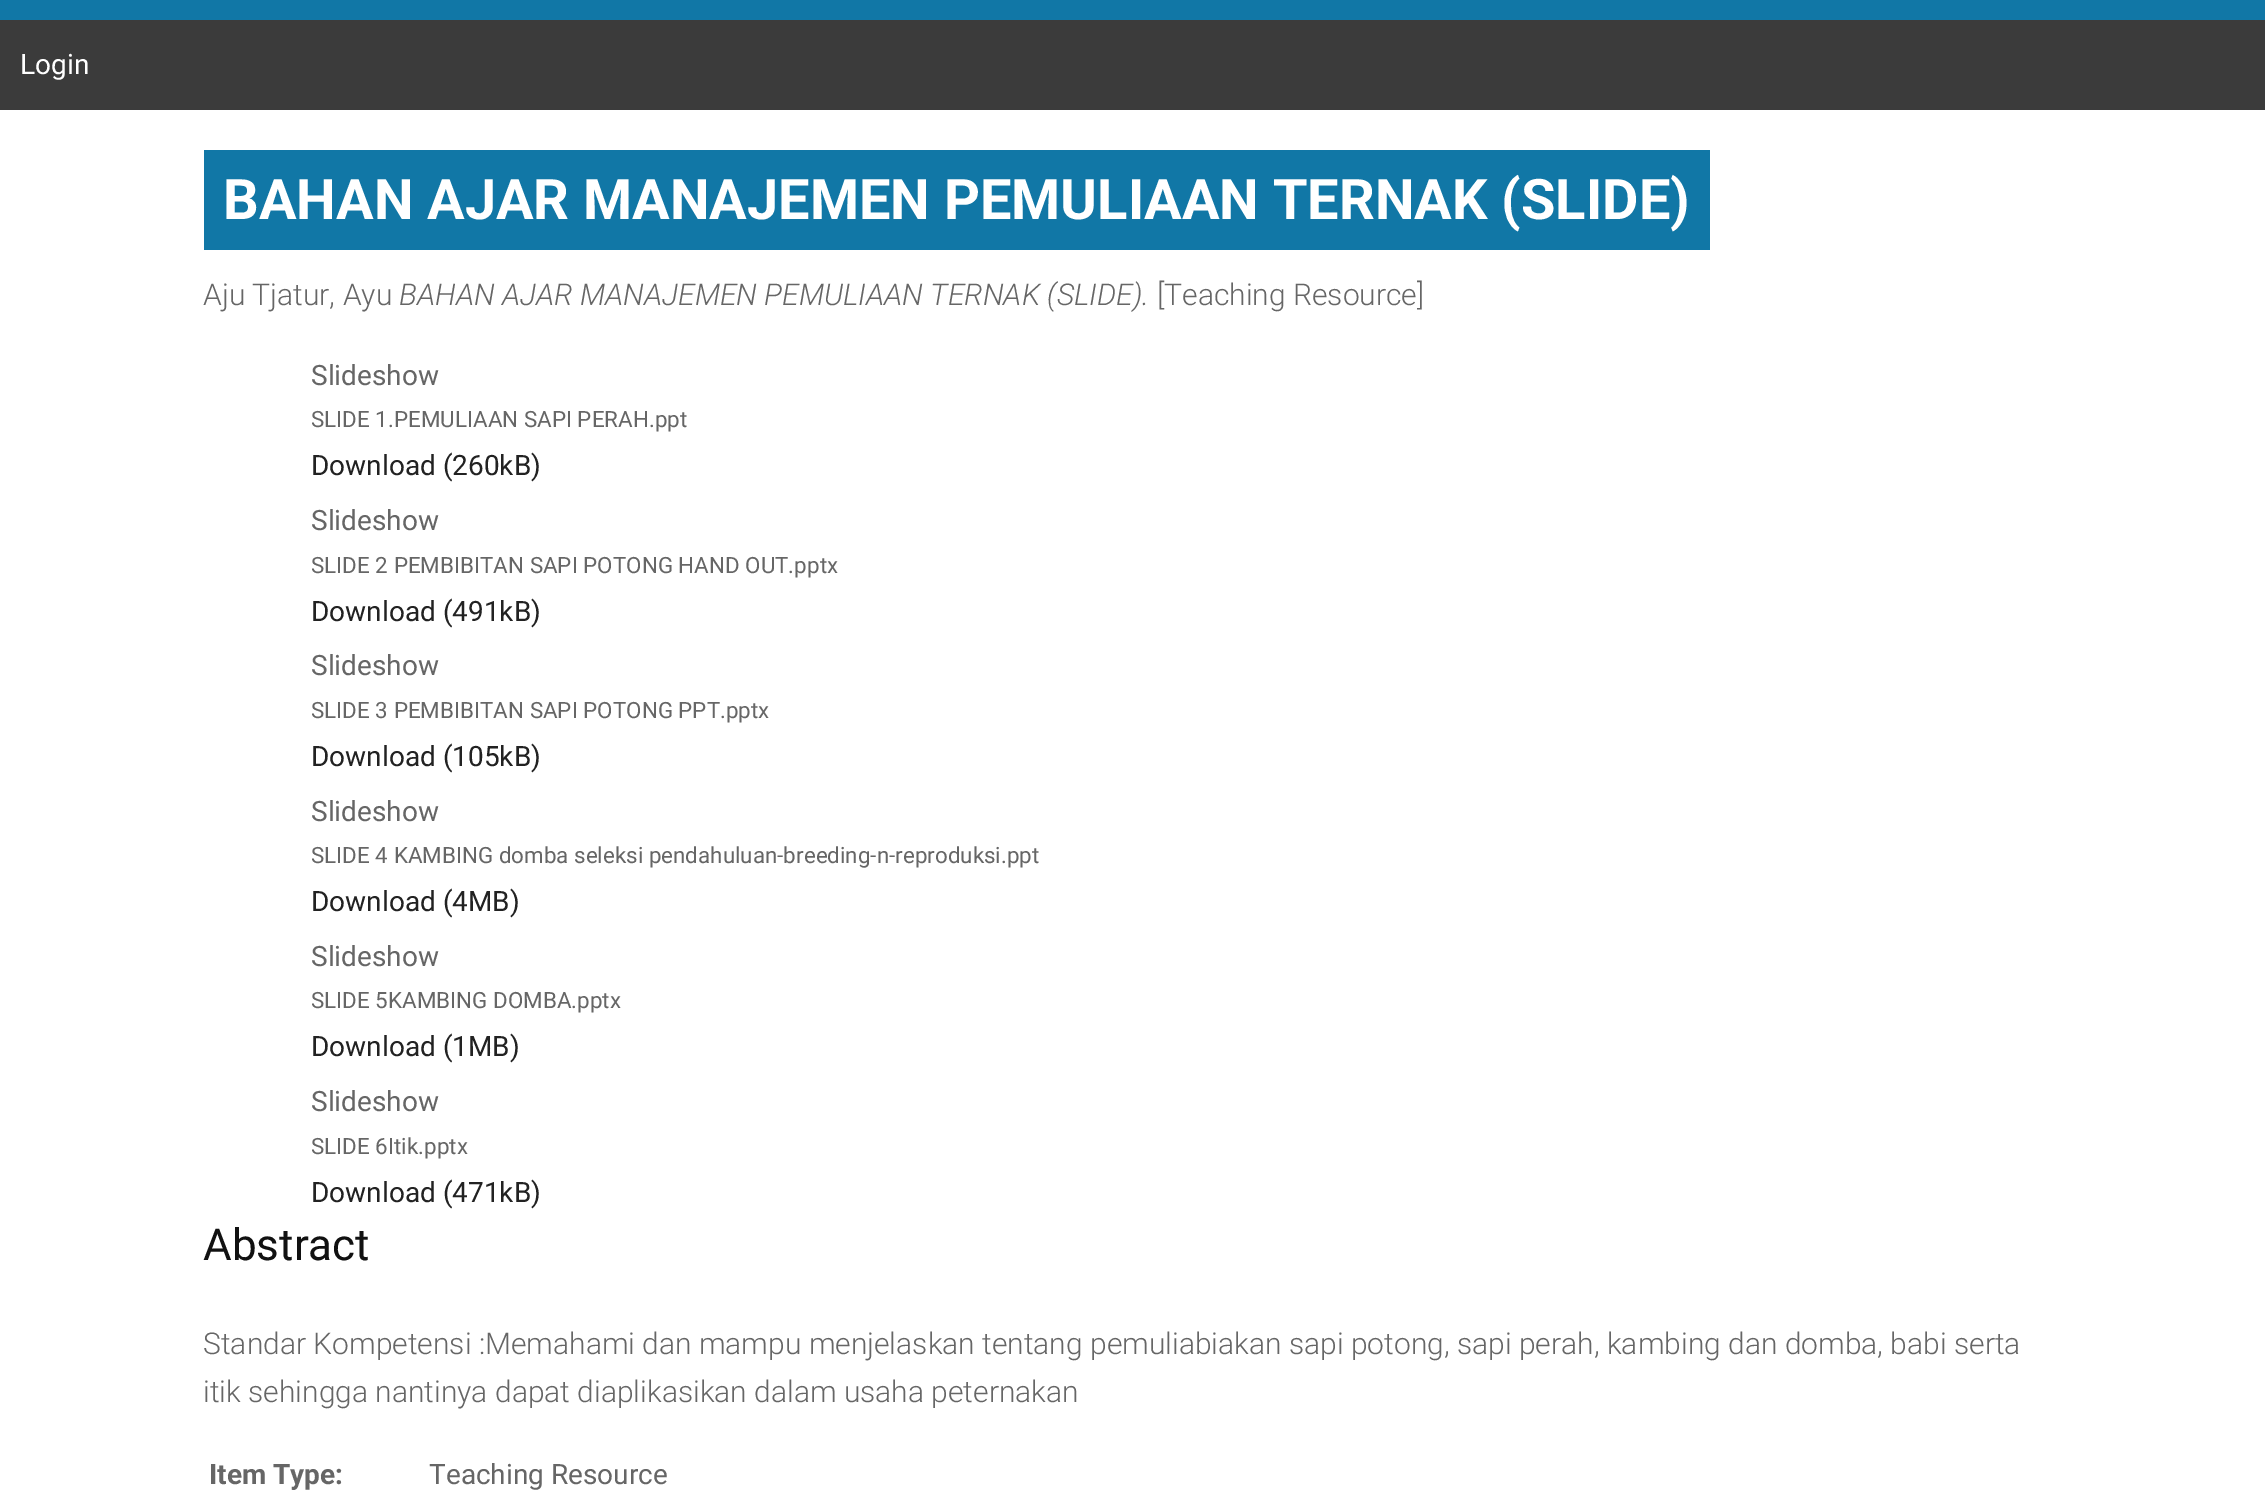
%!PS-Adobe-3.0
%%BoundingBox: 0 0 2265 1508
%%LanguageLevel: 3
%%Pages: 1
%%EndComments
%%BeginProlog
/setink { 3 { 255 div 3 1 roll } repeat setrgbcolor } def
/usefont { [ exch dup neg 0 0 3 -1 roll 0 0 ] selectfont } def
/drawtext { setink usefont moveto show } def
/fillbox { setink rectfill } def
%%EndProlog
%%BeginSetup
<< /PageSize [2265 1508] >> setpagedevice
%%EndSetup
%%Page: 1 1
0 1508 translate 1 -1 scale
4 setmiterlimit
0 0 2265 1508 255 255 255 fillbox
0 0 2265 20 17 119 166 fillbox
0 20 2265 90 59 59 59 fillbox
(Login) 20 74 /Roboto-Regular 28 255 255 255 drawtext
204 150 1506 100 17 119 166 fillbox
(BAHAN AJAR MANAJEMEN PEMULIAAN TERNAK \(SLIDE\)) 223 219 /Roboto-Bold 56 255 255 255 drawtext
(Aju Tjatur, Ayu) 203 305 /Roboto-Light 30 102 102 102 drawtext
(BAHAN AJAR MANAJEMEN PEMULIAAN TERNAK \(SLIDE\).) 399 305 /Roboto-LightItalic 30 102 102 102 drawtext
([Teaching Resource]) 1157 305 /Roboto-Light 30 102 102 102 drawtext
(Slideshow) 311 385 /Roboto-Regular 28 102 102 102 drawtext
(SLIDE 1.PEMULIAAN SAPI PERAH.ppt) 311 427 /Roboto-Regular 22.4 102 102 102 drawtext
(Download \(260kB\)) 311 475 /Roboto-Regular 28 34 34 34 drawtext
(Slideshow) 311 530 /Roboto-Regular 28 102 102 102 drawtext
(SLIDE 2 PEMBIBITAN SAPI POTONG HAND OUT.pptx) 311 573 /Roboto-Regular 22.4 102 102 102 drawtext
(Download \(491kB\)) 311 621 /Roboto-Regular 28 34 34 34 drawtext
(Slideshow) 311 675 /Roboto-Regular 28 102 102 102 drawtext
(SLIDE 3 PEMBIBITAN SAPI POTONG PPT.pptx) 311 718 /Roboto-Regular 22.4 102 102 102 drawtext
(Download \(105kB\)) 311 766 /Roboto-Regular 28 34 34 34 drawtext
(Slideshow) 311 821 /Roboto-Regular 28 102 102 102 drawtext
(SLIDE 4 KAMBING domba seleksi pendahuluan-breeding-n-reproduksi.ppt) 311 863 /Roboto-Regular 22.4 102 102 102 drawtext
(Download \(4MB\)) 311 911 /Roboto-Regular 28 34 34 34 drawtext
(Slideshow) 311 966 /Roboto-Regular 28 102 102 102 drawtext
(SLIDE 5KAMBING DOMBA.pptx) 311 1008 /Roboto-Regular 22.4 102 102 102 drawtext
(Download \(1MB\)) 311 1056 /Roboto-Regular 28 34 34 34 drawtext
(Slideshow) 311 1111 /Roboto-Regular 28 102 102 102 drawtext
(SLIDE 6Itik.pptx) 311 1154 /Roboto-Regular 22.4 102 102 102 drawtext
(Download \(471kB\)) 311 1202 /Roboto-Regular 28 34 34 34 drawtext
(Abstract) 203 1260 /Roboto-Regular 44 17 17 17 drawtext
(Standar Kompetensi :Memahami dan mampu menjelaskan tentang pemuliabiakan sapi potong, sapi perah, kambing dan domba, babi serta) 203 1354 /Roboto-Light 30 102 102 102 drawtext
(itik sehingga nantinya dapat diaplikasikan dalam usaha peternakan) 203 1402 /Roboto-Light 30 102 102 102 drawtext
(Item Type:) 209 1484 /Roboto-Bold 28 102 102 102 drawtext
(Teaching Resource) 429 1484 /Roboto-Regular 28 102 102 102 drawtext
showpage
%%EOF
